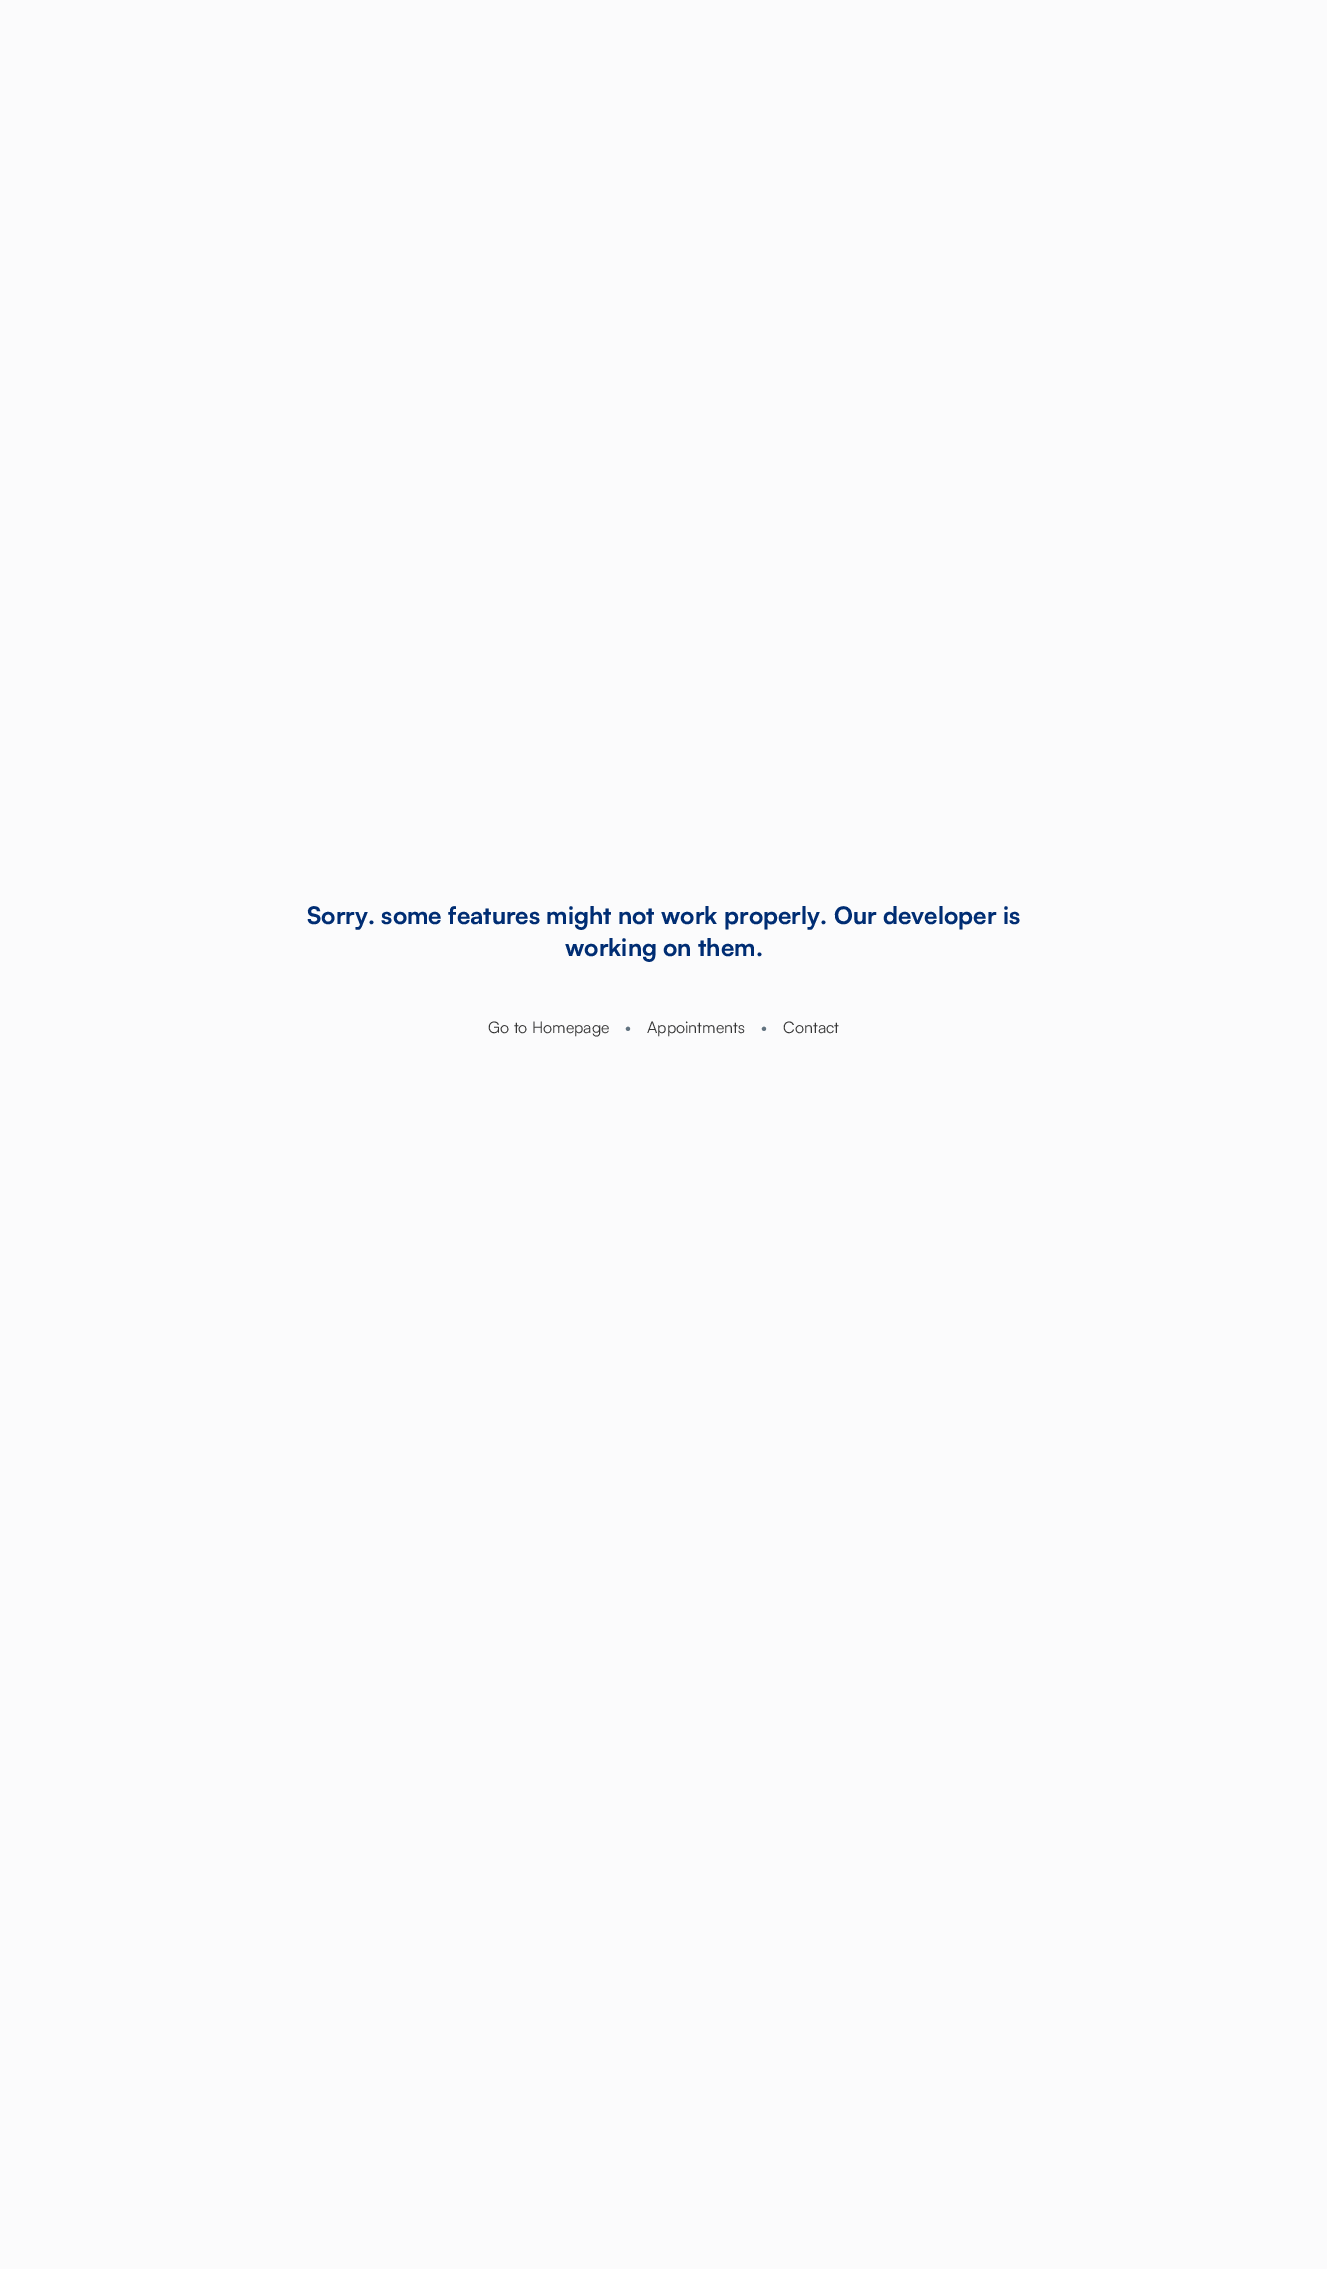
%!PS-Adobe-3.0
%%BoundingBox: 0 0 1327 2269
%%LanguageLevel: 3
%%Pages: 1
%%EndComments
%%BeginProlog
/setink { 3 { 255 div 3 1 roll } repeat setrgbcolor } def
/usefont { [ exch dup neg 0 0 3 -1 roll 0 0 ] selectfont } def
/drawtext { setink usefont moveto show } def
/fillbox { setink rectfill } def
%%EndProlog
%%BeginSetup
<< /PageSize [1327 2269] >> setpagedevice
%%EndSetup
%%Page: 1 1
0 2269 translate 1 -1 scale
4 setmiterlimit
0 0 1327 2269 251 251 252 fillbox
(Sorry. some features might not work properly. Our developer is) 307 924 /Satoshi-Bold 24 0 45 115 drawtext
(working on them.) 565 956 /Satoshi-Bold 24 0 45 115 drawtext
(Go to Homepage) 488 1033 /Satoshi-Regular 16 54 54 54 drawtext
(•) 625 1033 /Satoshi-Regular 16 98 115 128 drawtext
(Appointments) 647 1033 /Satoshi-Regular 16 54 54 54 drawtext
(•) 761 1033 /Satoshi-Regular 16 98 115 128 drawtext
(Contact) 783 1033 /Satoshi-Regular 16 54 54 54 drawtext
showpage
%%EOF
